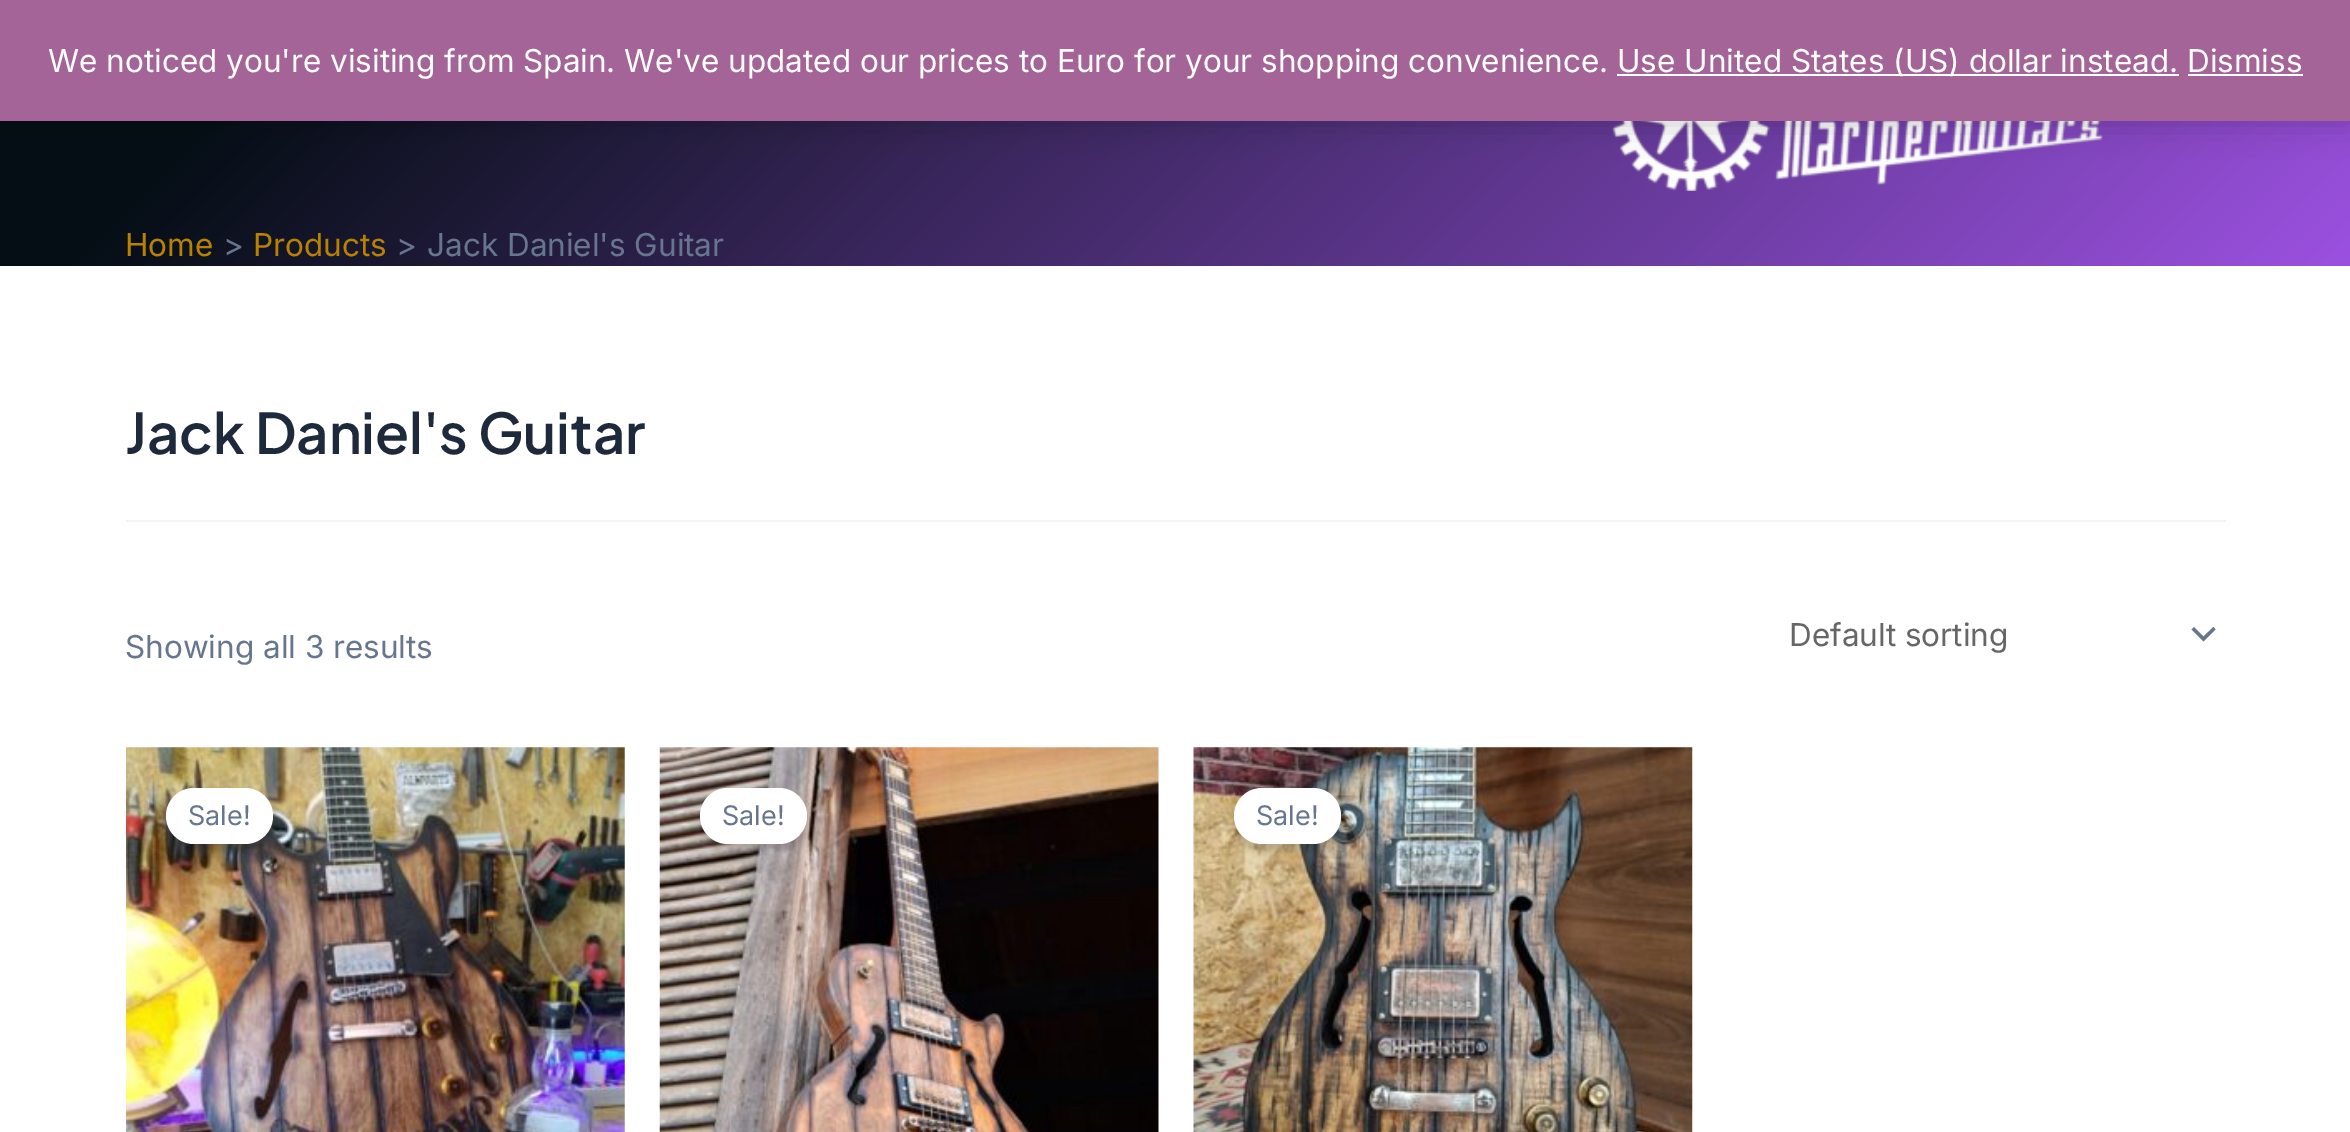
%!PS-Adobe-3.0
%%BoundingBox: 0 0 2350 1132
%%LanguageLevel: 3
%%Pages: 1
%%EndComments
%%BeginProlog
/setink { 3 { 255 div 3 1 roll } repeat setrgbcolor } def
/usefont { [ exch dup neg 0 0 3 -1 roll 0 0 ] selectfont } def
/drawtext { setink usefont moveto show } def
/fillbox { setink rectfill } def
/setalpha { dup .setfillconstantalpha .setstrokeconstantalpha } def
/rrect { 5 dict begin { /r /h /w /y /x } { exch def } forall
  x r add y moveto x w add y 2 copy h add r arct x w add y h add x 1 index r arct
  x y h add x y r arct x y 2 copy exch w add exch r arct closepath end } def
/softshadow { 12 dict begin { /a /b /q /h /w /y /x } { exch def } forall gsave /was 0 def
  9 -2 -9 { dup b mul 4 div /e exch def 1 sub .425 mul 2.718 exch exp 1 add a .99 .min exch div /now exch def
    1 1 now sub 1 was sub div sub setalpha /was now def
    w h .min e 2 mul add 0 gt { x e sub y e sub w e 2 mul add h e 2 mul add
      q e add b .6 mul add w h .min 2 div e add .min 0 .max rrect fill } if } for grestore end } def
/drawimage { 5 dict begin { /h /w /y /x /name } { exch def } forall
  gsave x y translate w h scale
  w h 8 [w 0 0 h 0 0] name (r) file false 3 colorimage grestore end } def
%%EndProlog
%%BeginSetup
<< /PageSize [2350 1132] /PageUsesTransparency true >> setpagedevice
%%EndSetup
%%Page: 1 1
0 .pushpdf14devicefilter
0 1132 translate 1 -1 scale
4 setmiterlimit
0 0 2350 1132 255 255 255 fillbox
gsave 0 121 moveto 2350 121 lineto 2350 266 lineto 0 266 lineto closepath clip newpath
<< /ShadingType 2 /ColorSpace /DeviceRGB /Coords [521 -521 1829 787] /Extend [true true] /Function << /FunctionType 3 /Domain [0 1] /Functions [<< /FunctionType 2 /Domain [0 1] /C0 [0.016 0.055 0.078] /C1 [0.016 0.055 0.078] /N 1 >> << /FunctionType 2 /Domain [0 1] /C0 [0.016 0.055 0.078] /C1 [0.608 0.318 0.878] /N 1 >>] /Bounds [0.12] /Encode [0 1 0 1] >> >> shfill grestore
(assets/img1.rgb) 1611 121 492 70 drawimage
0 0 0 setink
0 2 2350 121 0 16 0.2 softshadow
0 0 2350 121 164 100 151 fillbox
(We noticed you're visiting from Spain. We've updated our prices to Euro for your shopping convenience.) 48 72 /Inter-Regular 31.5 255 255 255 drawtext
1617 74 562 2 255 255 255 fillbox
(Use United States \(US\) dollar instead. Dismiss) 1617 72 /Inter-Regular 31.5 255 255 255 drawtext
2188 74 115 2 255 255 255 fillbox
(Home) 125 256 /Inter-Regular 31.5 184 129 0 drawtext
(>) 223 256 /Inter-Regular 31.5 103 118 142 drawtext
(Products) 253 256 /Inter-Regular 31.5 184 129 0 drawtext
(>) 396 256 /Inter-Regular 31.5 103 118 142 drawtext
(Jack Daniel's Guitar) 427 256 /Inter-Regular 31.5 103 118 142 drawtext
126 520 2100 2 242 245 247 fillbox
(Jack Daniel's Guitar) 125 454 /PlusJakartaSans-SemiBold 56 30 41 59 drawtext
(Showing all 3 results) 125 658 /Inter-Regular 31.5 103 118 142 drawtext
2191.5 629.5 moveto 2203.5 641.5 lineto 2215.5 629.5 lineto 2213.5 627 lineto 2203.5 636.5 lineto 2194 627 lineto closepath fill
(Default sorting) 1789 646 /Inter-Regular 31.5 102 102 102 drawtext
(assets/img2.rgb) 126 747 499 385 drawimage
0 0 0 setink
166 795 107 56 28 3.5 0.15 softshadow
255 255 255 setink
166 788 107 56 28 rrect fill
(Sale!) 188 825 /Inter-Regular 27 103 118 142 drawtext
(assets/img3.rgb) 659 747 500 385 drawimage
0 0 0 setink
700 795 107 56 28 3.5 0.15 softshadow
255 255 255 setink
700 788 107 56 28 rrect fill
(Sale!) 722 825 /Inter-Regular 27 103 118 142 drawtext
(assets/img4.rgb) 1193 747 500 385 drawimage
0 0 0 setink
1234 795 107 56 28 3.5 0.15 softshadow
255 255 255 setink
1234 788 107 56 28 rrect fill
(Sale!) 1256 825 /Inter-Regular 27 103 118 142 drawtext
.poppdf14devicefilter showpage
%%EOF
